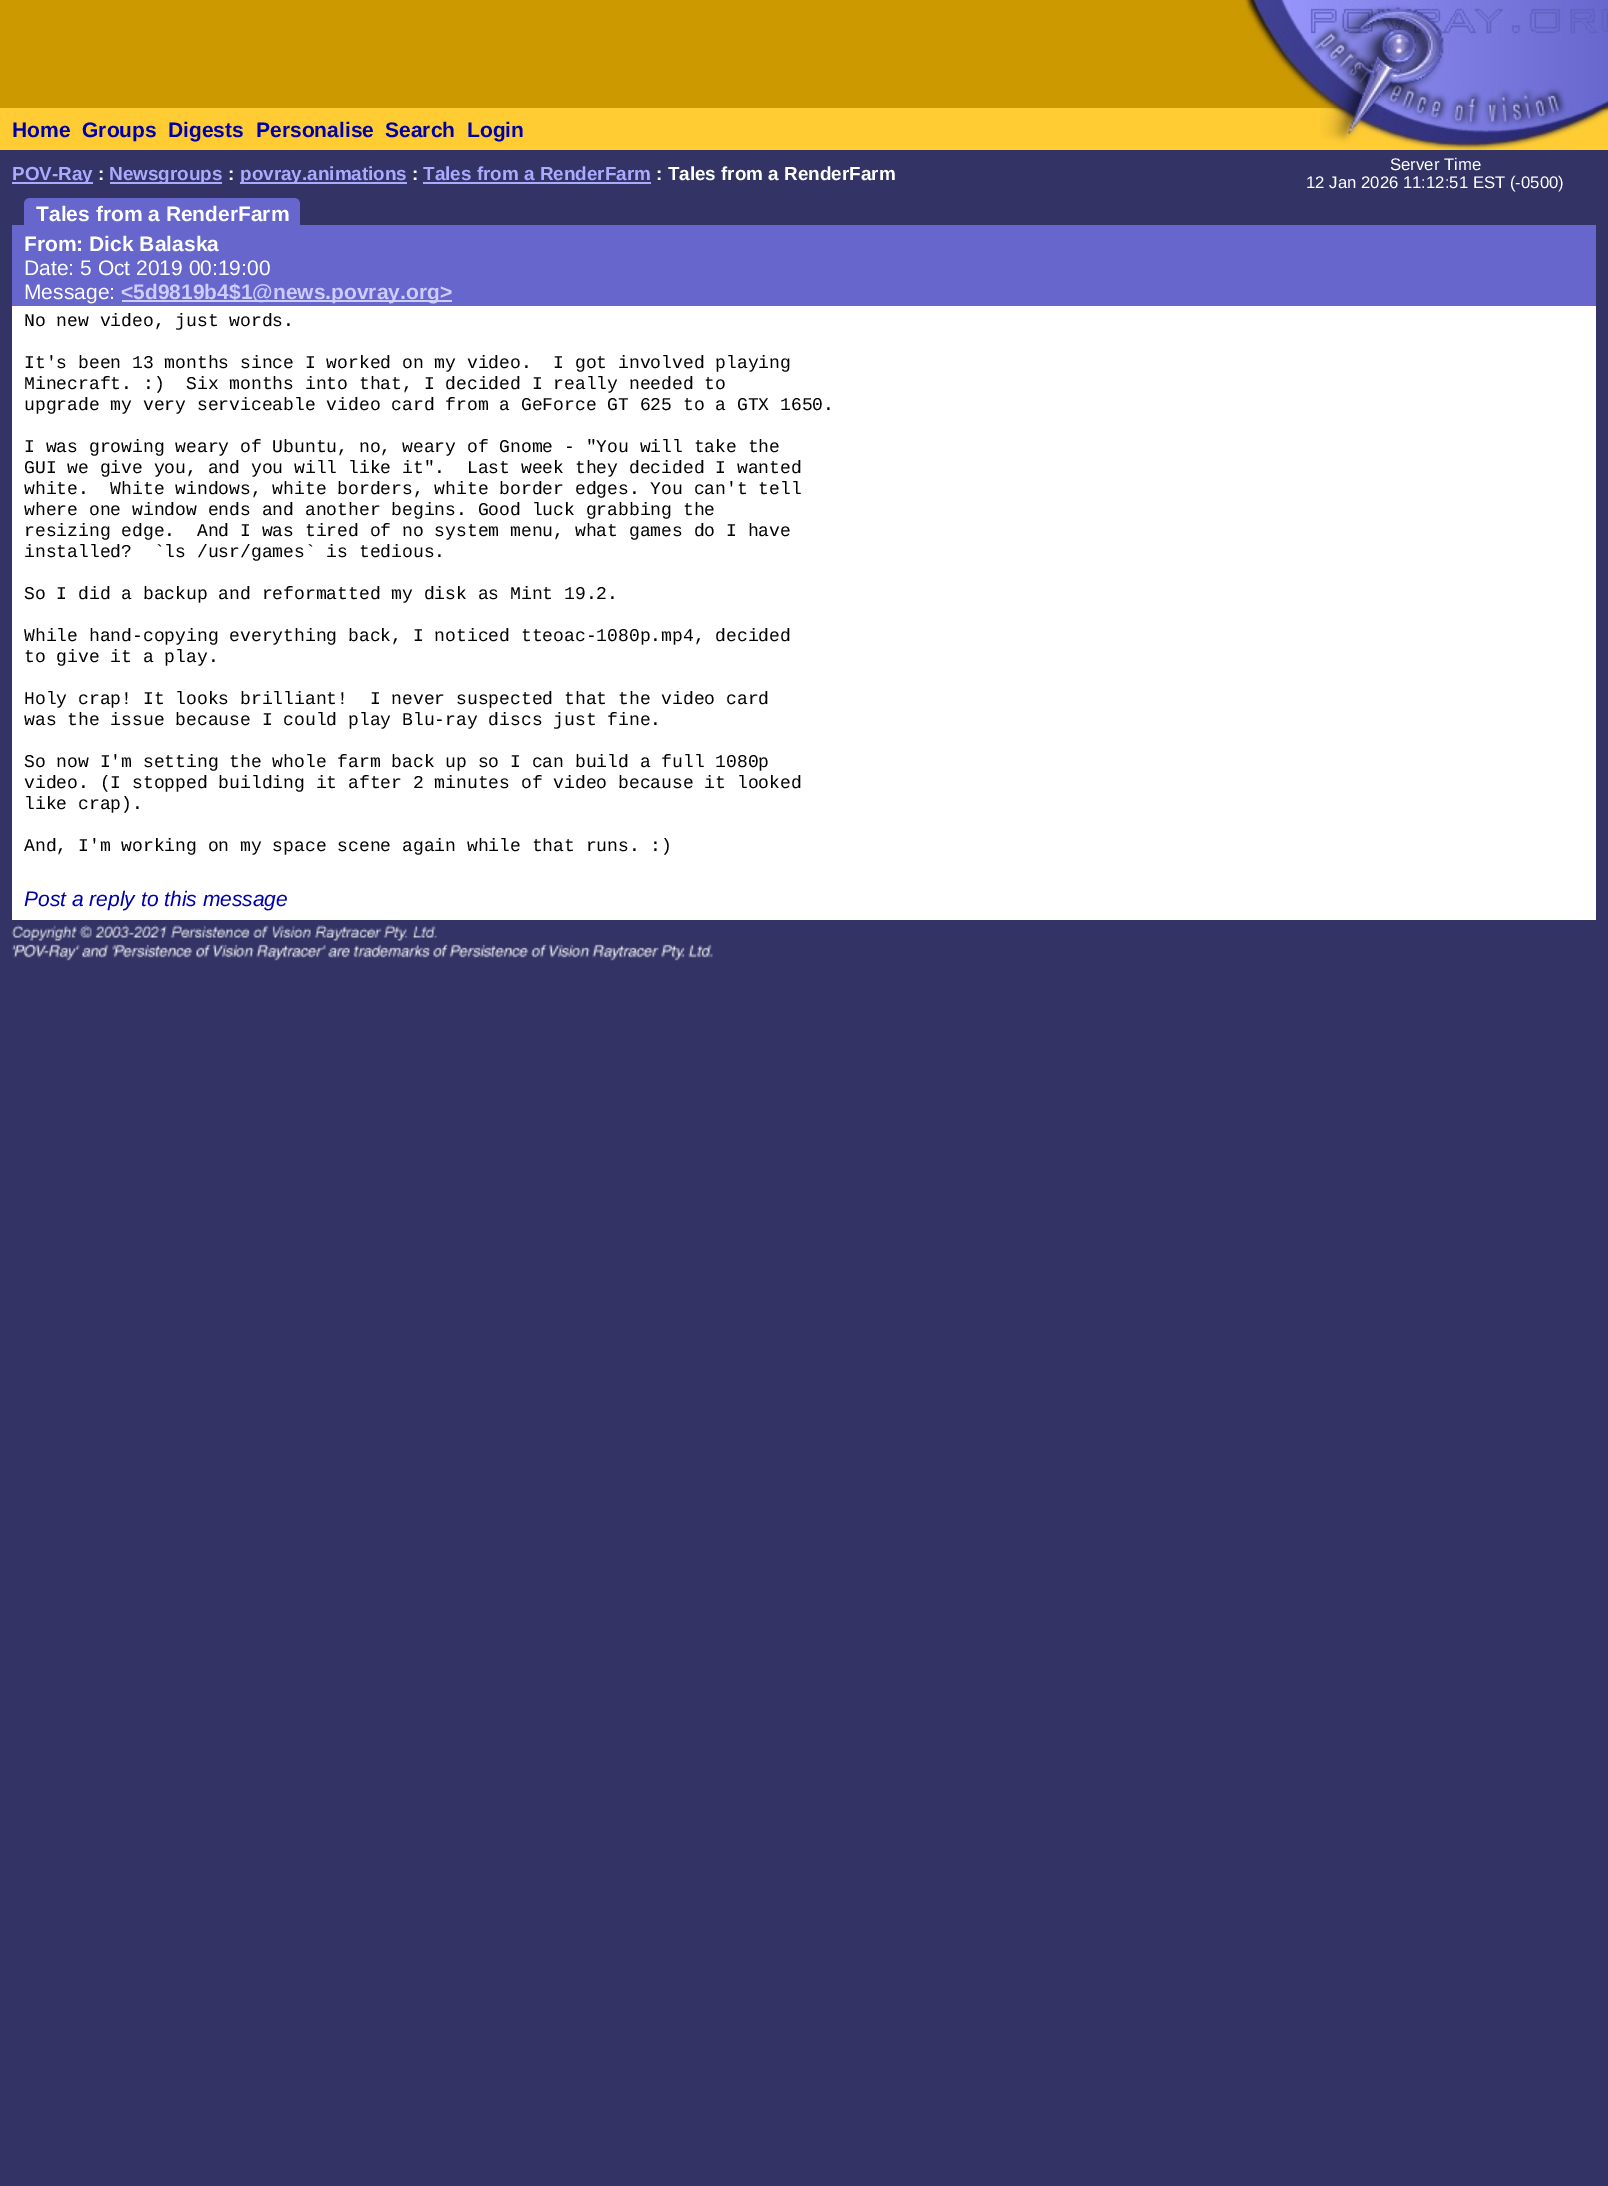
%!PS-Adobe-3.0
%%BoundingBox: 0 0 1608 2186
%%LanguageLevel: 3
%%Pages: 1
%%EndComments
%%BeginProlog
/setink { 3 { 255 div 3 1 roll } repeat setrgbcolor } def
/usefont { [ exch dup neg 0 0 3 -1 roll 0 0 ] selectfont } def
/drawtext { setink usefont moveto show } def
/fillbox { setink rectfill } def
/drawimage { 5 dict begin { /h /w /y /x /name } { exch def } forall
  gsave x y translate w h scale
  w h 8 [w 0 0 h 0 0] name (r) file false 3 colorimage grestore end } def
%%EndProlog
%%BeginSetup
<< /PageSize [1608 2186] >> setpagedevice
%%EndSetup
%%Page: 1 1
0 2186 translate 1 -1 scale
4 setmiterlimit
0 0 1608 2186 51 51 102 fillbox
0 0 1320 108 204 153 0 fillbox
(assets/img1.rgb) 1241 0 79 100 drawimage
(assets/img2.rgb) 1320 0 60 108 drawimage
(assets/img3.rgb) 1380 0 228 108 drawimage
0 108 1320 42 255 204 51 fillbox
(Home) 12 137 /LiberationSans-Bold 21 0 0 170 drawtext
(Groups) 82 137 /LiberationSans-Bold 21 0 0 170 drawtext
(Digests) 168 137 /LiberationSans-Bold 21 0 0 170 drawtext
(Personalise) 256 137 /LiberationSans-Bold 21 0 0 170 drawtext
(Search) 385 137 /LiberationSans-Bold 21 0 0 170 drawtext
(Login) 467 137 /LiberationSans-Bold 21 0 0 170 drawtext
1320 147 60 3 255 204 51 fillbox
(assets/img4.rgb) 1320 108 60 39 drawimage
(assets/img5.rgb) 1380 108 228 42 drawimage
12 182 81 2 170 170 255 fillbox
(POV-Ray) 12 180 /LiberationSans-Bold 18.9 170 170 255 drawtext
(:) 98 180 /LiberationSans-Bold 18.9 255 255 255 drawtext
110 182 112 2 170 170 255 fillbox
(Newsgroups) 109 180 /LiberationSans-Bold 18.9 170 170 255 drawtext
(:) 228 180 /LiberationSans-Bold 18.9 255 255 255 drawtext
240 182 167 2 170 170 255 fillbox
(povray.animations) 240 180 /LiberationSans-Bold 18.9 170 170 255 drawtext
(:) 412 180 /LiberationSans-Bold 18.9 255 255 255 drawtext
(Tales from a RenderFarm) 423 180 /LiberationSans-Bold 18.9 170 170 255 drawtext
423 182 228 2 170 170 255 fillbox
(: Tales from a RenderFarm) 656 180 /LiberationSans-Bold 18.9 255 255 255 drawtext
(Server Time) 1390 170 /LiberationSans-Regular 16.75 255 255 255 drawtext
(12 Jan 2026 11:12:51 EST \(-0500\)) 1306 188 /LiberationSans-Regular 16.75 255 255 255 drawtext
102 102 204 setink
30 198 moveto 294 198 lineto 297.5 198 300 200.5 300 204 curveto 300 225 lineto 24 225 lineto 24 204 lineto 24 200.5 26.5 198 30 198 curveto closepath fill
(Tales from a RenderFarm) 36 221 /LiberationSans-Bold 21 255 255 255 drawtext
12 225 1584 6 102 102 204 fillbox
12 231 1584 75 102 102 204 fillbox
(From: Dick Balaska) 24 251 /LiberationSans-Bold 21 255 255 255 drawtext
(Date: 5 Oct 2019 00:19:00) 24 275 /LiberationSans-Regular 21 255 255 255 drawtext
(Message:) 24 299 /LiberationSans-Regular 21 255 255 255 drawtext
122 300 330 2 204 204 255 fillbox
(<5d9819b4$1@news.povray.org>) 121 299 /LiberationSans-Bold 21 204 204 255 drawtext
12 306 1584 3 255 255 255 fillbox
12 309 1584 611 255 255 255 fillbox
(No new video, just words.) 24 326 /LiberationMono-Regular 18 0 0 0 drawtext
(It's been 13 months since I worked on my video.  I got involved playing) 24 368 /LiberationMono-Regular 18 0 0 0 drawtext
(Minecraft. :\)  Six months into that, I decided I really needed to) 24 389 /LiberationMono-Regular 18 0 0 0 drawtext
(upgrade my very serviceable video card from a GeForce GT 625 to a GTX 1650.) 24 410 /LiberationMono-Regular 18 0 0 0 drawtext
(I was growing weary of Ubuntu, no, weary of Gnome - "You will take the) 24 452 /LiberationMono-Regular 18 0 0 0 drawtext
(GUI we give you, and you will like it".  Last week they decided I wanted) 24 473 /LiberationMono-Regular 18 0 0 0 drawtext
(white.  White windows, white borders, white border edges. You can't tell) 24 494 /LiberationMono-Regular 18 0 0 0 drawtext
(where one window ends and another begins. Good luck grabbing the) 24 515 /LiberationMono-Regular 18 0 0 0 drawtext
(resizing edge.  And I was tired of no system menu, what games do I have) 24 536 /LiberationMono-Regular 18 0 0 0 drawtext
(installed?  `ls /usr/games` is tedious.) 24 557 /LiberationMono-Regular 18 0 0 0 drawtext
(So I did a backup and reformatted my disk as Mint 19.2.) 24 599 /LiberationMono-Regular 18 0 0 0 drawtext
(While hand-copying everything back, I noticed tteoac-1080p.mp4, decided) 24 641 /LiberationMono-Regular 18 0 0 0 drawtext
(to give it a play.) 24 662 /LiberationMono-Regular 18 0 0 0 drawtext
(Holy crap! It looks brilliant!  I never suspected that the video card) 24 704 /LiberationMono-Regular 18 0 0 0 drawtext
(was the issue because I could play Blu-ray discs just fine.) 24 725 /LiberationMono-Regular 18 0 0 0 drawtext
(So now I'm setting the whole farm back up so I can build a full 1080p) 24 767 /LiberationMono-Regular 18 0 0 0 drawtext
(video. \(I stopped building it after 2 minutes of video because it looked) 24 788 /LiberationMono-Regular 18 0 0 0 drawtext
(like crap\).) 24 809 /LiberationMono-Regular 18 0 0 0 drawtext
(And, I'm working on my space scene again while that runs. :\)) 24 851 /LiberationMono-Regular 18 0 0 0 drawtext
(Post a reply to this message) 24 906 /LiberationSans-Italic 21 0 0 170 drawtext
(assets/img6.rgb) 11 925 702 36 drawimage
showpage
%%EOF
